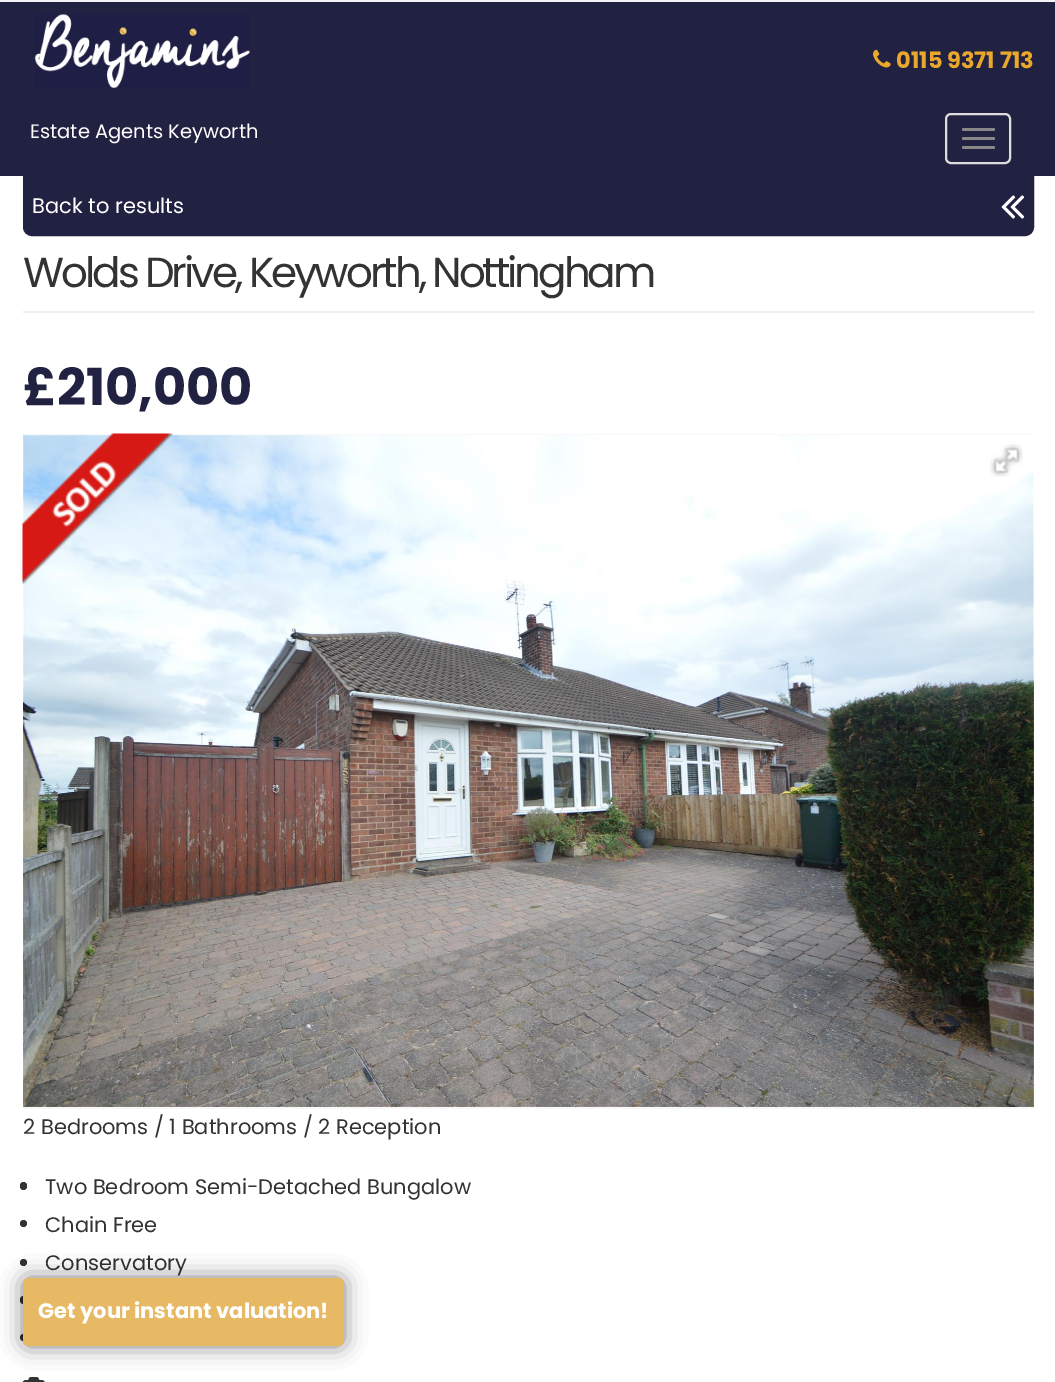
%!PS-Adobe-3.0
%%BoundingBox: 0 0 1055 1382
%%LanguageLevel: 3
%%Pages: 1
%%EndComments
%%BeginProlog
/setink { 3 { 255 div 3 1 roll } repeat setrgbcolor } def
/usefont { [ exch dup neg 0 0 3 -1 roll 0 0 ] selectfont } def
/drawtext { setink usefont moveto show } def
/fillbox { setink rectfill } def
/setalpha { dup .setfillconstantalpha .setstrokeconstantalpha } def
/disc { newpath 0 360 arc closepath } def
/rrect { 5 dict begin { /r /h /w /y /x } { exch def } forall
  x r add y moveto x w add y 2 copy h add r arct x w add y h add x 1 index r arct
  x y h add x y r arct x y 2 copy exch w add exch r arct closepath end } def
/softshadow { 12 dict begin { /a /b /q /h /w /y /x } { exch def } forall gsave /was 0 def
  9 -2 -9 { dup b mul 4 div /e exch def 1 sub .425 mul 2.718 exch exp 1 add a .99 .min exch div /now exch def
    1 1 now sub 1 was sub div sub setalpha /was now def
    w h .min e 2 mul add 0 gt { x e sub y e sub w e 2 mul add h e 2 mul add
      q e add b .6 mul add w h .min 2 div e add .min 0 .max rrect fill } if } for grestore end } def
/drawimage { 5 dict begin { /h /w /y /x /name } { exch def } forall
  gsave x y translate w h scale
  w h 8 [w 0 0 h 0 0] name (r) file false 3 colorimage grestore end } def
%%EndProlog
%%BeginSetup
<< /PageSize [1055 1382] /PageUsesTransparency true >> setpagedevice
%%EndSetup
%%Page: 1 1
0 .pushpdf14devicefilter
0 1382 translate 1 -1 scale
4 setmiterlimit
0 0 1055 1382 33 33 66 fillbox
0 0 1055 2 244 244 244 fillbox
(assets/img1.rgb) 34 14 216 74 drawimage
(assets/img2.rgb) 873 49 18 19 drawimage
(0115 9371 713) 896 68 /Poppins-Bold 22.5 233 168 43 drawtext
(Estate Agents Keyworth) 30 138 /Poppins-Regular 19.5 255 255 255 drawtext
221 221 221 setink
2 setlinewidth
946 114 64 49 5 rrect stroke
136 136 136 setink
962 128 33 3 1.5 rrect fill
962 137 33 3 1.5 rrect fill
962 146 33 3 1.5 rrect fill
0 176 1055 1206 255 255 255 fillbox
33 33 66 setink
24 177 moveto 1033 177 lineto 1033 227 lineto 1033 231.5 1029.5 235 1025 235 curveto 32 235 lineto 27.5 235 24 231.5 24 227 curveto closepath gsave fill grestore
stroke
(Back to results) 32 213 /Poppins-Regular 21 255 255 255 drawtext
(assets/img3.rgb) 1001 195 24 24 drawimage
23 311 1011 2 238 238 238 fillbox
/Poppins-Regular 42 usefont
51 51 51 setink
23 287 moveto -3 0 (Wolds Drive, Keyworth, Nottingham) ashow
(£210,000) 23 405 /Poppins-Bold 51 33 33 66 drawtext
23 434 1011 675 248 248 248 fillbox
(assets/img5.rgb) 23 435 1011 672 drawimage
(assets/img4.rgb) 22 433 151 151 drawimage
(assets/img6.rgb) 990 444 33 33 drawimage
(2 Bedrooms / 1 Bathrooms / 2 Reception) 23 1134 /Poppins-Regular 21 51 51 51 drawtext
20 1182 7 8 3.5 rrect fill
(Two Bedroom Semi-Detached Bungalow) 45 1194 /Poppins-Regular 21 51 51 51 drawtext
23.5 1223.5 3.5 disc fill
(Chain Free) 45 1232 /Poppins-Regular 21 51 51 51 drawtext
23.5 1262.5 3.5 disc fill
(Conservatory) 45 1270 /Poppins-Regular 21 51 51 51 drawtext
20 1296 7 8 3.5 rrect fill
23.5 1337.5 3.5 disc fill
(assets/img7.rgb) 22 1377 23 5 drawimage
0 0 0 setink
23 1278 321 68 5 11 0.5 softshadow
231 185 100 setink
23 1278 321 68 5 rrect fill
(Get your instant valuation!) 38 1318 /Poppins-Bold 21 255 255 255 drawtext
.poppdf14devicefilter showpage
%%EOF
